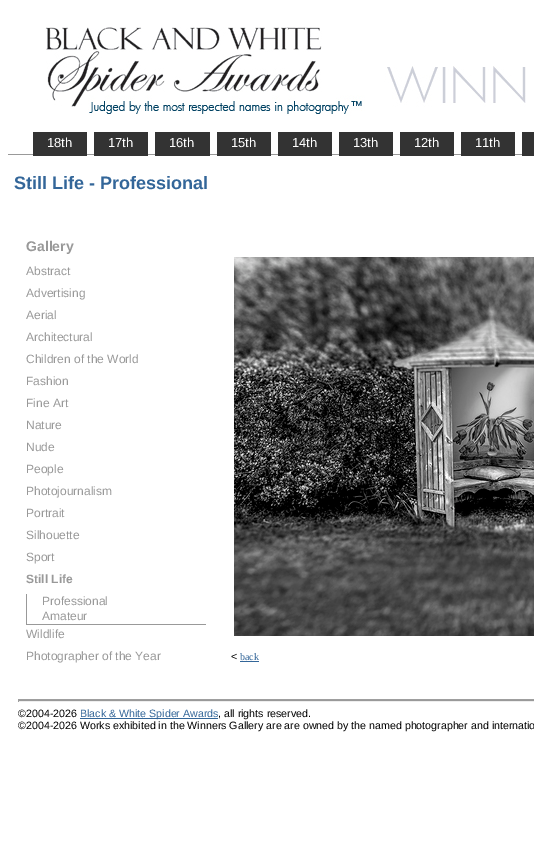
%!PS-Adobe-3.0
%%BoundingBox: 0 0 534 862
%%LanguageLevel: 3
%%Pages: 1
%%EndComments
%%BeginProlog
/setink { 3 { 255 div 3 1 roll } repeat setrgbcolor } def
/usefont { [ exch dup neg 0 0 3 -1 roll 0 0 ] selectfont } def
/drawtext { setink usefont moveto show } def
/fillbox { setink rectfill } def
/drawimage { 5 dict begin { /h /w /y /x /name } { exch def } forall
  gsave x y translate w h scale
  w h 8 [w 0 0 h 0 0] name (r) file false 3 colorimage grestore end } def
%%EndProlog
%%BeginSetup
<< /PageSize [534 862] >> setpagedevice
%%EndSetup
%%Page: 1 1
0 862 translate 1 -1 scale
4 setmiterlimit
0 0 534 862 255 255 255 fillbox
(assets/img1.rgb) 45 27 481 89 drawimage
8 154 514 1 153 153 153 fillbox
33 132 54 24 51 51 51 fillbox
(18th) 47 147 /LiberationSans-Regular 13 255 255 255 drawtext
94 132 54 24 51 51 51 fillbox
(17th) 108 147 /LiberationSans-Regular 13 255 255 255 drawtext
155 132 55 24 51 51 51 fillbox
(16th) 169 147 /LiberationSans-Regular 13 255 255 255 drawtext
217 132 54 24 51 51 51 fillbox
(15th) 231 147 /LiberationSans-Regular 13 255 255 255 drawtext
278 132 54 24 51 51 51 fillbox
(14th) 292 147 /LiberationSans-Regular 13 255 255 255 drawtext
339 132 54 24 51 51 51 fillbox
(13th) 353 147 /LiberationSans-Regular 13 255 255 255 drawtext
400 132 54 24 51 51 51 fillbox
(12th) 414 147 /LiberationSans-Regular 13 255 255 255 drawtext
461 132 54 24 51 51 51 fillbox
(11th) 475 147 /LiberationSans-Regular 13 255 255 255 drawtext
522 132 12 24 51 51 51 fillbox
(Still Life - Professional) 14 189 /LiberationSans-Bold 18 51 102 153 drawtext
(Gallery) 26 251 /LiberationSans-Bold 14 153 153 153 drawtext
(Abstract) 26 275 /LiberationSans-Regular 12 153 153 153 drawtext
(Advertising) 26 297 /LiberationSans-Regular 12 153 153 153 drawtext
(Aerial) 26 319 /LiberationSans-Regular 12 153 153 153 drawtext
(Architectural) 26 341 /LiberationSans-Regular 12 153 153 153 drawtext
(Children of the World) 26 363 /LiberationSans-Regular 12 153 153 153 drawtext
(Fashion) 26 385 /LiberationSans-Regular 12 153 153 153 drawtext
(Fine Art) 26 407 /LiberationSans-Regular 12 153 153 153 drawtext
(Nature) 26 429 /LiberationSans-Regular 12 153 153 153 drawtext
(Nude) 26 451 /LiberationSans-Regular 12 153 153 153 drawtext
(People) 26 473 /LiberationSans-Regular 12 153 153 153 drawtext
(Photojournalism) 26 495 /LiberationSans-Regular 12 153 153 153 drawtext
(Portrait) 26 517 /LiberationSans-Regular 12 153 153 153 drawtext
(Silhouette) 26 539 /LiberationSans-Regular 12 153 153 153 drawtext
(Sport) 26 561 /LiberationSans-Regular 12 153 153 153 drawtext
(Still Life) 26 583 /LiberationSans-Bold 12 153 153 153 drawtext
26 624 180 1 153 153 153 fillbox
26 594 1 31 153 153 153 fillbox
(Professional) 42 605 /LiberationSans-Regular 12 153 153 153 drawtext
(Amateur) 42 620 /LiberationSans-Regular 12 153 153 153 drawtext
(Wildlife) 26 638 /LiberationSans-Regular 12 153 153 153 drawtext
(Photographer of the Year) 26 660 /LiberationSans-Regular 12 153 153 153 drawtext
(assets/img2.rgb) 234 257 300 379 drawimage
(<) 231 660 /LiberationSans-Regular 10.65 0 0 0 drawtext
(back) 240 660 /LiberationSerif-Regular 10 51 102 153 drawtext
240 661 19 1 51 102 153 fillbox
18 700 516 1 153 153 153 fillbox
18 699 516 1 159 159 159 fillbox
18 701 516 1 238 238 238 fillbox
18 699 1 3 159 159 159 fillbox
(©2004-2026) 18 717 /LiberationSans-Regular 10.65 0 0 0 drawtext
80 718 138 1 51 102 153 fillbox
(Black & White Spider Awards) 80 717 /LiberationSans-Regular 10.65 51 102 153 drawtext
(, all rights reserved.) 218 717 /LiberationSans-Regular 10.65 0 0 0 drawtext
(©2004-2026 Works exhibited in the Winners Gallery are are owned by the named photographer and internatio) 18 729 /LiberationSans-Regular 10.65 0 0 0 drawtext
showpage
%%EOF
